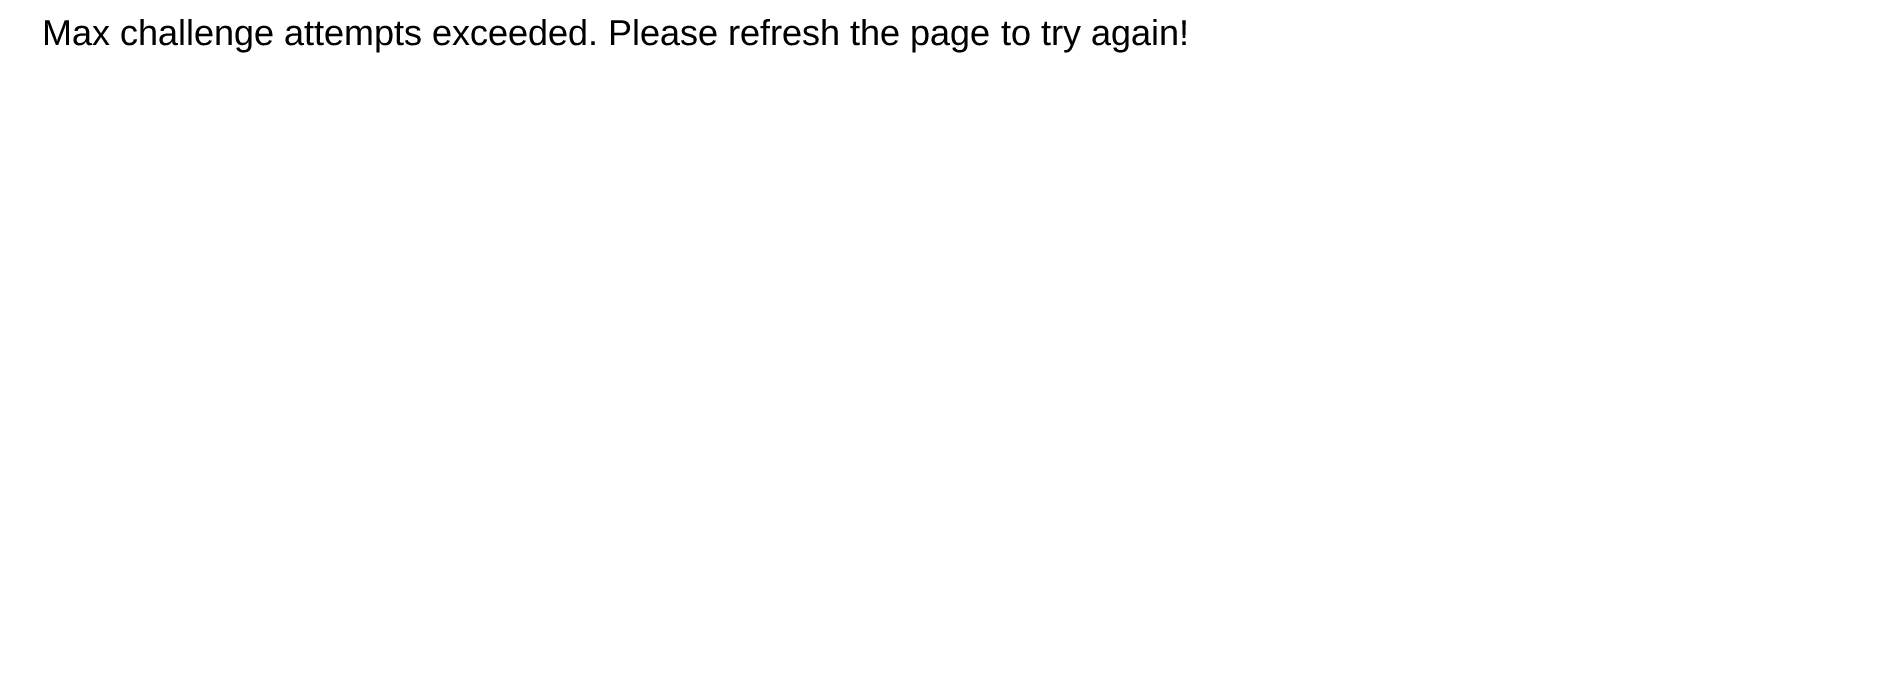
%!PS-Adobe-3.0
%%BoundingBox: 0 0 1899 700
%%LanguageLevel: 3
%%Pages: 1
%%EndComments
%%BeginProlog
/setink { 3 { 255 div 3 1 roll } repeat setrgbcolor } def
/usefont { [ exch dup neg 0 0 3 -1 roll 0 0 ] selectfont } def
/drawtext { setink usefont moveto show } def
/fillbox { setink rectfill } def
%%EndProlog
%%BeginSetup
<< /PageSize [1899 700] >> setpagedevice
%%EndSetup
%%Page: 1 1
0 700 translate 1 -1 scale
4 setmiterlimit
0 0 1899 700 255 255 255 fillbox
(Max challenge attempts exceeded. Please refresh the page to try again!) 42 45 /LiberationSans-Regular 36 0 0 0 drawtext
showpage
%%EOF
